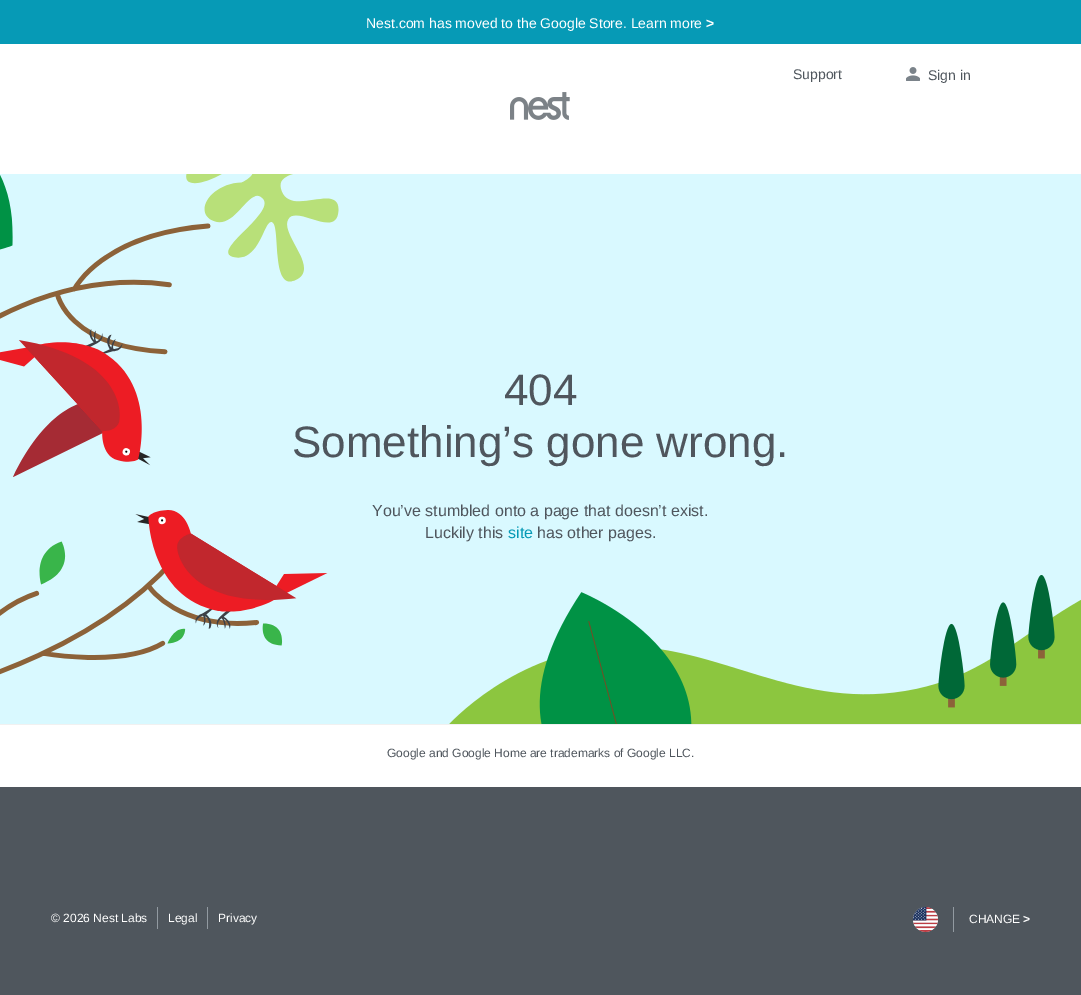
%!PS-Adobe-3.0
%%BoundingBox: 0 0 1081 995
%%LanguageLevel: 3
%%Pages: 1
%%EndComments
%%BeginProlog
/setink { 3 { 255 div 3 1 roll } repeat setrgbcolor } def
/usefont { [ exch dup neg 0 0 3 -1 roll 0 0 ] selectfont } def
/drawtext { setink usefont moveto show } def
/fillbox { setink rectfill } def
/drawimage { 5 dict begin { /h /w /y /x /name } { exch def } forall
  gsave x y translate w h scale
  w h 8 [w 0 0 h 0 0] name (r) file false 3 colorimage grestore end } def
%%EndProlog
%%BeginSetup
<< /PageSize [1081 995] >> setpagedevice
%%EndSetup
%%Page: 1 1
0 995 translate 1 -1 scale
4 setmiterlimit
0 0 1081 995 255 255 255 fillbox
0 0 1081 44 6 154 182 fillbox
(Nest.com has moved to the Google Store. Learn more) 366 28 /LiberationSans-Regular 14 255 255 255 drawtext
(>) 706 28 /LiberationSans-Bold 14 255 255 255 drawtext
(Support) 793 79 /LiberationSans-Regular 14 79 86 93 drawtext
(assets/img1.rgb) 906 67 14 14 drawimage
(Sign in) 928 80 /LiberationSans-Regular 14 79 86 93 drawtext
(assets/img2.rgb) 510 92 60 28 drawimage
0 174 1081 550 217 249 255 fillbox
(assets/img3.rgb) 0 174 339 501 drawimage
(404) 504 405 /LiberationSans-Regular 44 79 86 93 drawtext
(Something’s gone wrong.) 292 457 /LiberationSans-Regular 44 79 86 93 drawtext
(You’ve stumbled onto a page that doesn’t exist.) 372 516 /LiberationSans-Regular 16 79 86 93 drawtext
(Luckily this) 425 538 /LiberationSans-Regular 16 79 86 93 drawtext
(site) 508 538 /LiberationSans-Regular 16 6 154 182 drawtext
(has other pages.) 537 538 /LiberationSans-Regular 16 79 86 93 drawtext
(assets/img4.rgb) 449 575 632 149 drawimage
0 724 1081 1 241 241 241 fillbox
(Google and Google Home are trademarks of Google LLC.) 387 757 /LiberationSans-Regular 12 79 86 93 drawtext
0 787 1081 208 79 86 93 fillbox
157 907 1 22 146 154 161 fillbox
(© 2026 Nest Labs) 51 922 /LiberationSans-Regular 12 255 255 255 drawtext
207 907 1 22 146 154 161 fillbox
(Legal) 168 922 /LiberationSans-Regular 12 255 255 255 drawtext
(Privacy) 218 922 /LiberationSans-Regular 12 255 255 255 drawtext
(assets/img5.rgb) 913 907 25 25 drawimage
953 907 1 25 146 154 161 fillbox
(CHANGE) 969 923 /LiberationSans-Regular 12 255 255 255 drawtext
(>) 1023 923 /LiberationSans-Bold 12 255 255 255 drawtext
showpage
%%EOF
